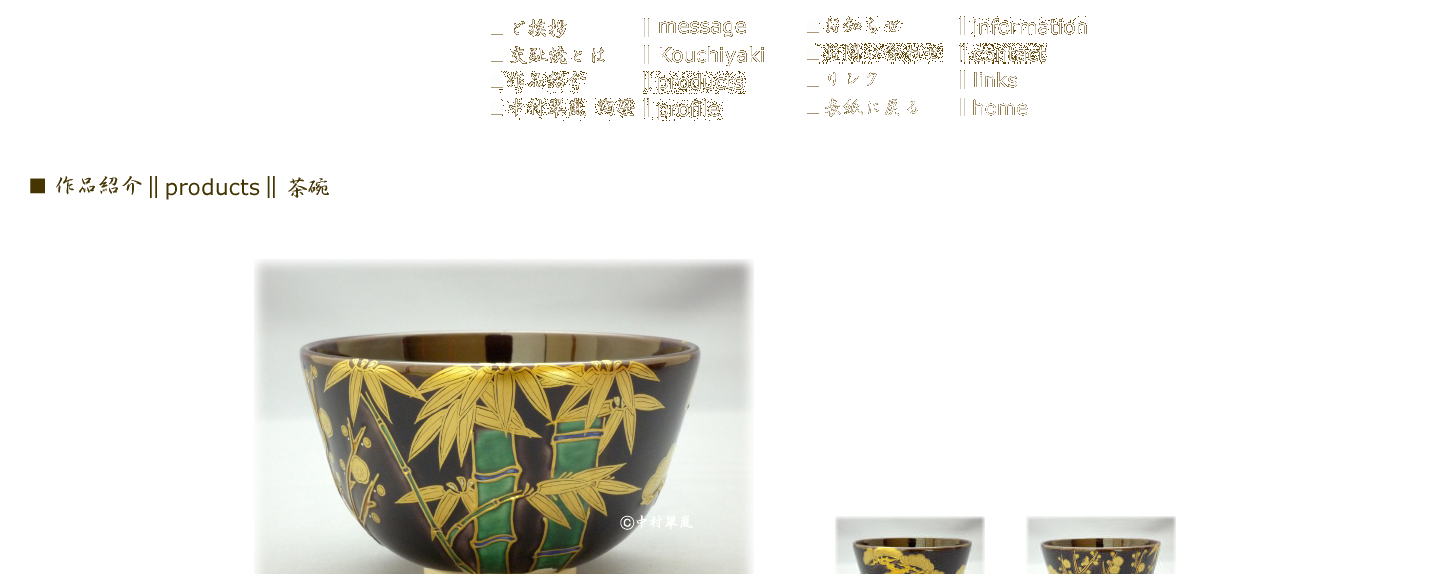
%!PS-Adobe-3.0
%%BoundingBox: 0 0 1446 574
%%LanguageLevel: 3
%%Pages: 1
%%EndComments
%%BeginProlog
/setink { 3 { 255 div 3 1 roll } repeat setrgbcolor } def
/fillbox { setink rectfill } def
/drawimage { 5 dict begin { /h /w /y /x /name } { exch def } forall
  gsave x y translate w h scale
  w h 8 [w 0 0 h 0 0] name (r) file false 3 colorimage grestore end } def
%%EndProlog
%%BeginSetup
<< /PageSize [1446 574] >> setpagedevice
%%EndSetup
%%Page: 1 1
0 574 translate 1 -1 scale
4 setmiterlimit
0 0 1446 574 255 255 255 fillbox
(assets/img1.rgb) 491 18 255 20 drawimage
(assets/img2.rgb) 807 16 280 21 drawimage
(assets/img3.rgb) 491 45 273 21 drawimage
(assets/img4.rgb) 807 43 240 21 drawimage
(assets/img5.rgb) 491 71 255 23 drawimage
(assets/img6.rgb) 807 70 210 19 drawimage
(assets/img7.rgb) 491 98 232 23 drawimage
(assets/img8.rgb) 807 98 221 19 drawimage
(assets/img9.rgb) 30 176 299 24 drawimage
(assets/img10.rgb) 254 259 500 315 drawimage
(assets/img11.rgb) 835 516 150 58 drawimage
(assets/img12.rgb) 1026 516 150 58 drawimage
showpage
%%EOF
